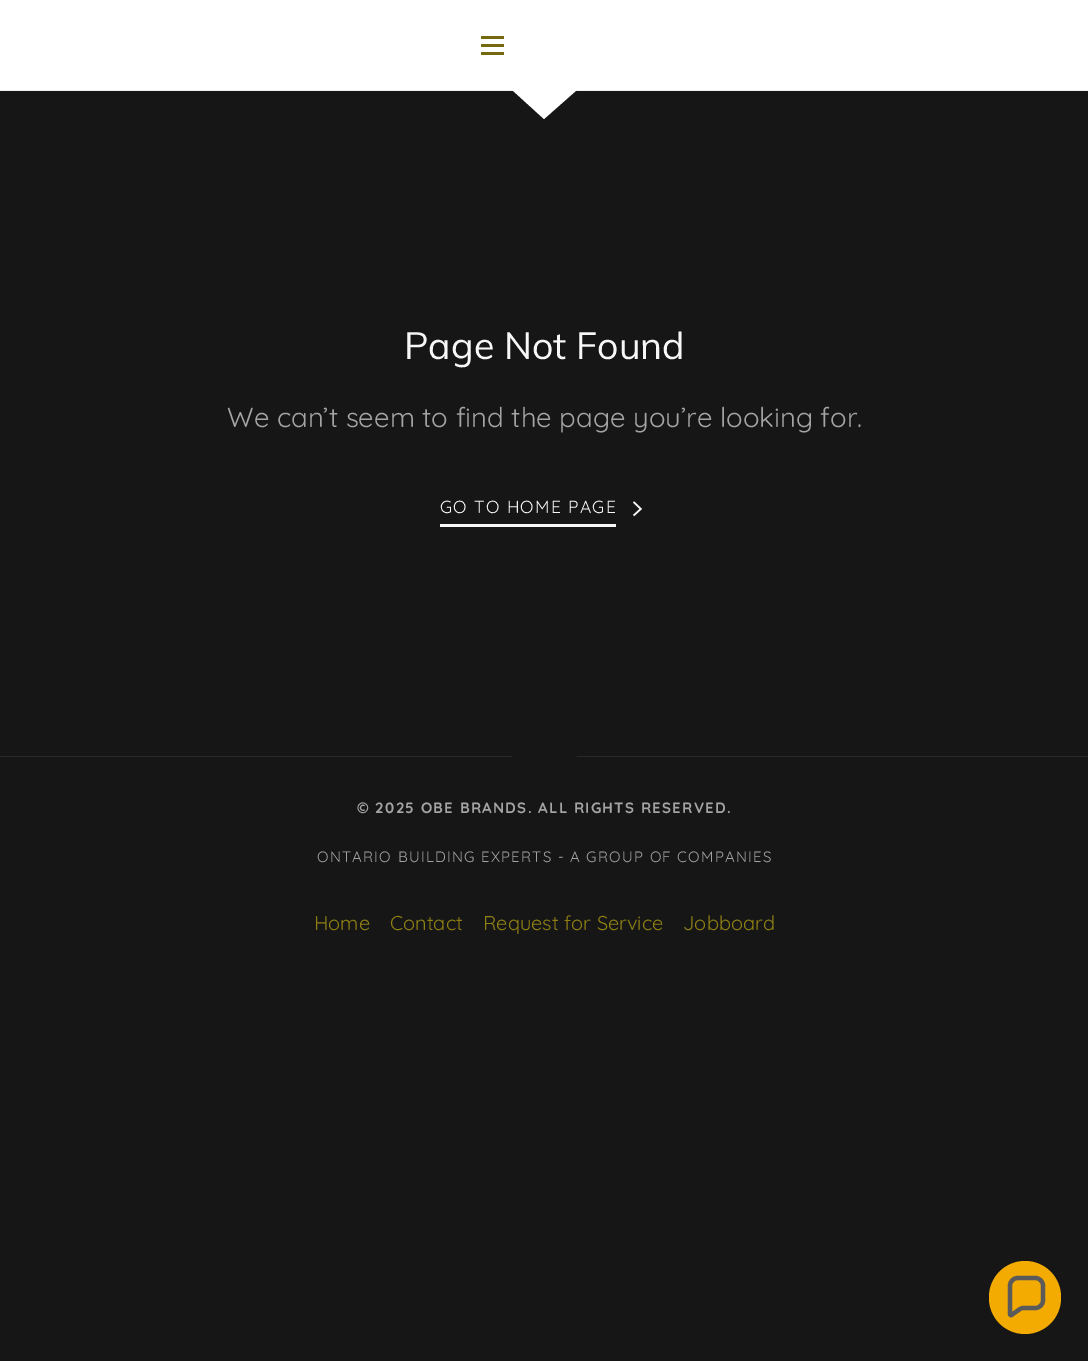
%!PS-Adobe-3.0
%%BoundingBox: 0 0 1088 1361
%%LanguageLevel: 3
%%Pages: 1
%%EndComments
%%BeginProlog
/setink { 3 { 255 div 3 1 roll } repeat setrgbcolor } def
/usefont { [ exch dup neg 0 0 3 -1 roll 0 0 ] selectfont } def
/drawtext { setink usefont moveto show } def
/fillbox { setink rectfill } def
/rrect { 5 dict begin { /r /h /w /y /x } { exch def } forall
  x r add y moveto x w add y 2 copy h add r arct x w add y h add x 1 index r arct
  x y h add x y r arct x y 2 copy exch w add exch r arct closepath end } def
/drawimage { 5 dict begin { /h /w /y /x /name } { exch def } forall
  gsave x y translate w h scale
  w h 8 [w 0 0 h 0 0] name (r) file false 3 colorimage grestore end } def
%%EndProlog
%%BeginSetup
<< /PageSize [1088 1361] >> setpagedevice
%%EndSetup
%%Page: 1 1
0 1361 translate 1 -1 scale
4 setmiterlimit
0 0 1088 1361 22 22 22 fillbox
0 0 1088 90 255 255 255 fillbox
0 90 1088 1 239 239 239 fillbox
481 36 23 3 117 105 16 fillbox
481 44 23 3 117 105 16 fillbox
481 52 23 3 117 105 16 fillbox
255 255 255 setink
544 119 moveto 578 89 lineto 511 89 lineto closepath eofill
(Page Not Found) 404 359 /Muli-Regular 37.5 247 247 247 drawtext
(We can’t seem to find the page you’re looking for.) 227 427 /Quicksand-Regular 27.5 164 164 164 drawtext
440 524 176 3 247 247 247 fillbox
/Quicksand-Regular 17.5 usefont
440 513 moveto 1.25 0 (GO TO HOME PAGE) ashow
(assets/img1.rgb) 632 501 11 16 drawimage
0 756 1088 1 42 42 42 fillbox
22 22 22 setink
544 728 moveto 511 758 lineto 578 758 lineto closepath eofill
/Quicksand-Bold 15 usefont
164 164 164 setink
357 813 moveto 1.25 0 (© 2025 OBE BRANDS. ALL RIGHTS RESERVED.) ashow
/Quicksand-Regular 15 usefont
317 862 moveto 1.25 0 (ONTARIO BUILDING EXPERTS - A GROUP OF COMPANIES) ashow
(Home) 314 930 /Quicksand-Regular 20 143 128 20 drawtext
(Contact) 390 930 /Quicksand-Regular 20 143 128 20 drawtext
(Request for Service) 483 930 /Quicksand-Regular 20 143 128 20 drawtext
(Jobboard) 683 930 /Quicksand-Regular 20 143 128 20 drawtext
243 171 1 setink
989 1261 72 73 36 rrect fill
90 90 90 setink
4.2 setlinewidth
1035.5 1278 moveto 1017.5 1278 lineto 1013.5 1278 1010 1281.5 1010 1285.5 curveto 1010 1314 lineto 1010 1315 1011 1315.5 1011.5 1315 curveto 1020 1309 lineto 1021 1308.5 1022 1308 1023 1308 curveto 1035.5 1308 lineto 1039.5 1308 1043 1304.5 1043 1300.5 curveto 1043 1285.5 lineto 1043 1281.5 1039.5 1278 1035.5 1278 curveto closepath stroke
showpage
%%EOF
